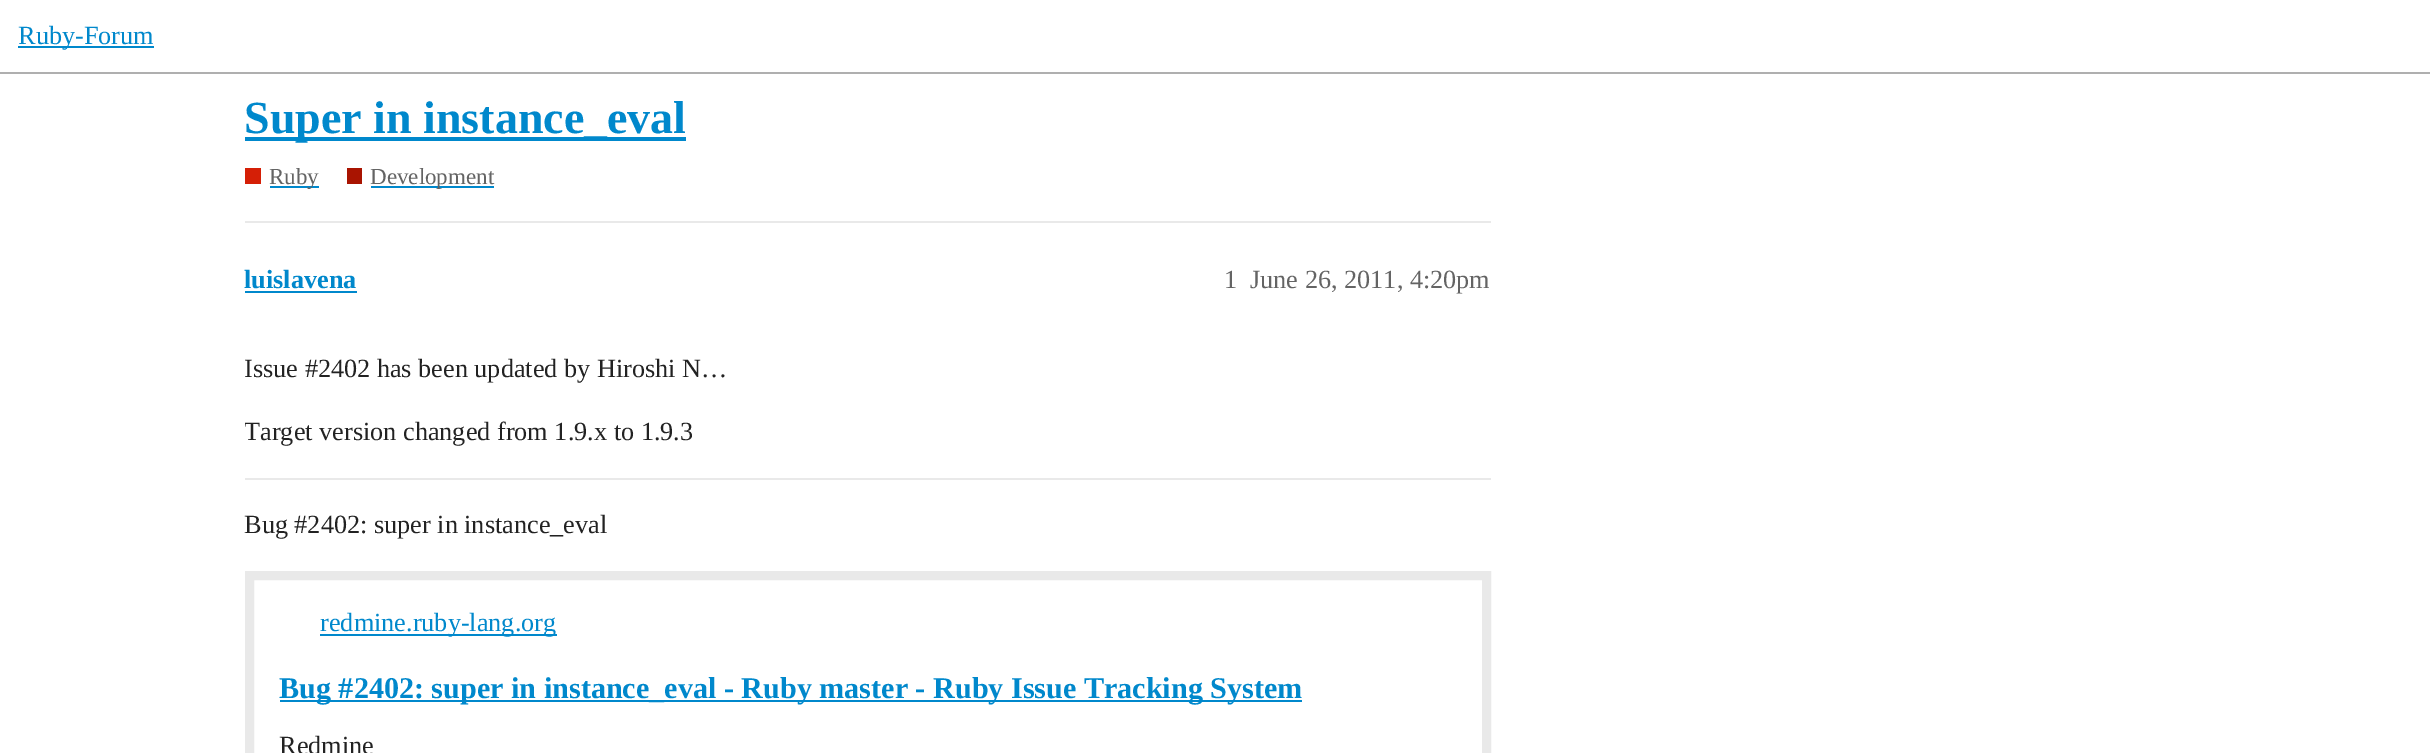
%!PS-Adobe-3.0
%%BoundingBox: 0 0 2430 753
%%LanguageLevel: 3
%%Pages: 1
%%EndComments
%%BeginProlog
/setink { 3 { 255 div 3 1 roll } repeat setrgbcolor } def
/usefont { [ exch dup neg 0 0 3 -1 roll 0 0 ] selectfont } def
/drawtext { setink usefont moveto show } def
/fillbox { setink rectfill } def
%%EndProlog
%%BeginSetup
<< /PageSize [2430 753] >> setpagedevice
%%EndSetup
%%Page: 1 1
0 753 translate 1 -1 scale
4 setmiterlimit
0 0 2430 753 255 255 255 fillbox
0 72 2430 2 175 175 175 fillbox
18 46 136 2 0 136 204 fillbox
(Ruby-Forum) 18 44 /LiberationSerif-Regular 26.25 0 136 204 drawtext
245 137 441 4 0 136 204 fillbox
(Super in instance_eval) 244 133 /LiberationSerif-Bold 46 0 136 204 drawtext
245 168 16 16 213 31 6 fillbox
270 186 49 2 0 136 204 fillbox
(Ruby) 269 184 /LiberationSerif-Regular 23 100 100 100 drawtext
347 168 15 16 169 20 1 fillbox
371 186 123 2 0 136 204 fillbox
(Development) 370 184 /LiberationSerif-Regular 23 100 100 100 drawtext
245 221 1246 2 233 233 233 fillbox
(luislavena) 244 288 /LiberationSerif-Bold 26.25 0 136 204 drawtext
245 291 112 2 0 136 204 fillbox
(1) 1224 288 /LiberationSerif-Regular 26.25 100 100 100 drawtext
(June 26, 2011, 4:20pm) 1250 288 /LiberationSerif-Regular 26.25 100 100 100 drawtext
(Issue #2402 has been updated by Hiroshi N…) 244 377 /LiberationSerif-Regular 26.25 34 34 34 drawtext
gsave
245 326 1246 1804 rectclip
(Target version changed from 1.9.x to 1.9.3) 244 440 /LiberationSerif-Regular 26.25 34 34 34 drawtext
grestore
245 478 1246 2 233 233 233 fillbox
(Bug #2402: super in instance_eval) 244 533 /LiberationSerif-Regular 26.25 34 34 34 drawtext
233 233 233 setink
9 setlinewidth
249.5 575.5 1237 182 rectstroke
320 634 237 2 0 136 204 fillbox
(redmine.ruby-lang.org) 320 631 /LiberationSerif-Regular 26.25 0 136 204 drawtext
280 700 1022 2 0 136 204 fillbox
(Bug #2402: super in instance_eval - Ruby master - Ruby Issue Tracking System) 279 698 /LiberationSerif-Bold 30.15 0 136 204 drawtext
(Redmine) 279 754 /LiberationSerif-Regular 26.25 34 34 34 drawtext
showpage
%%EOF
